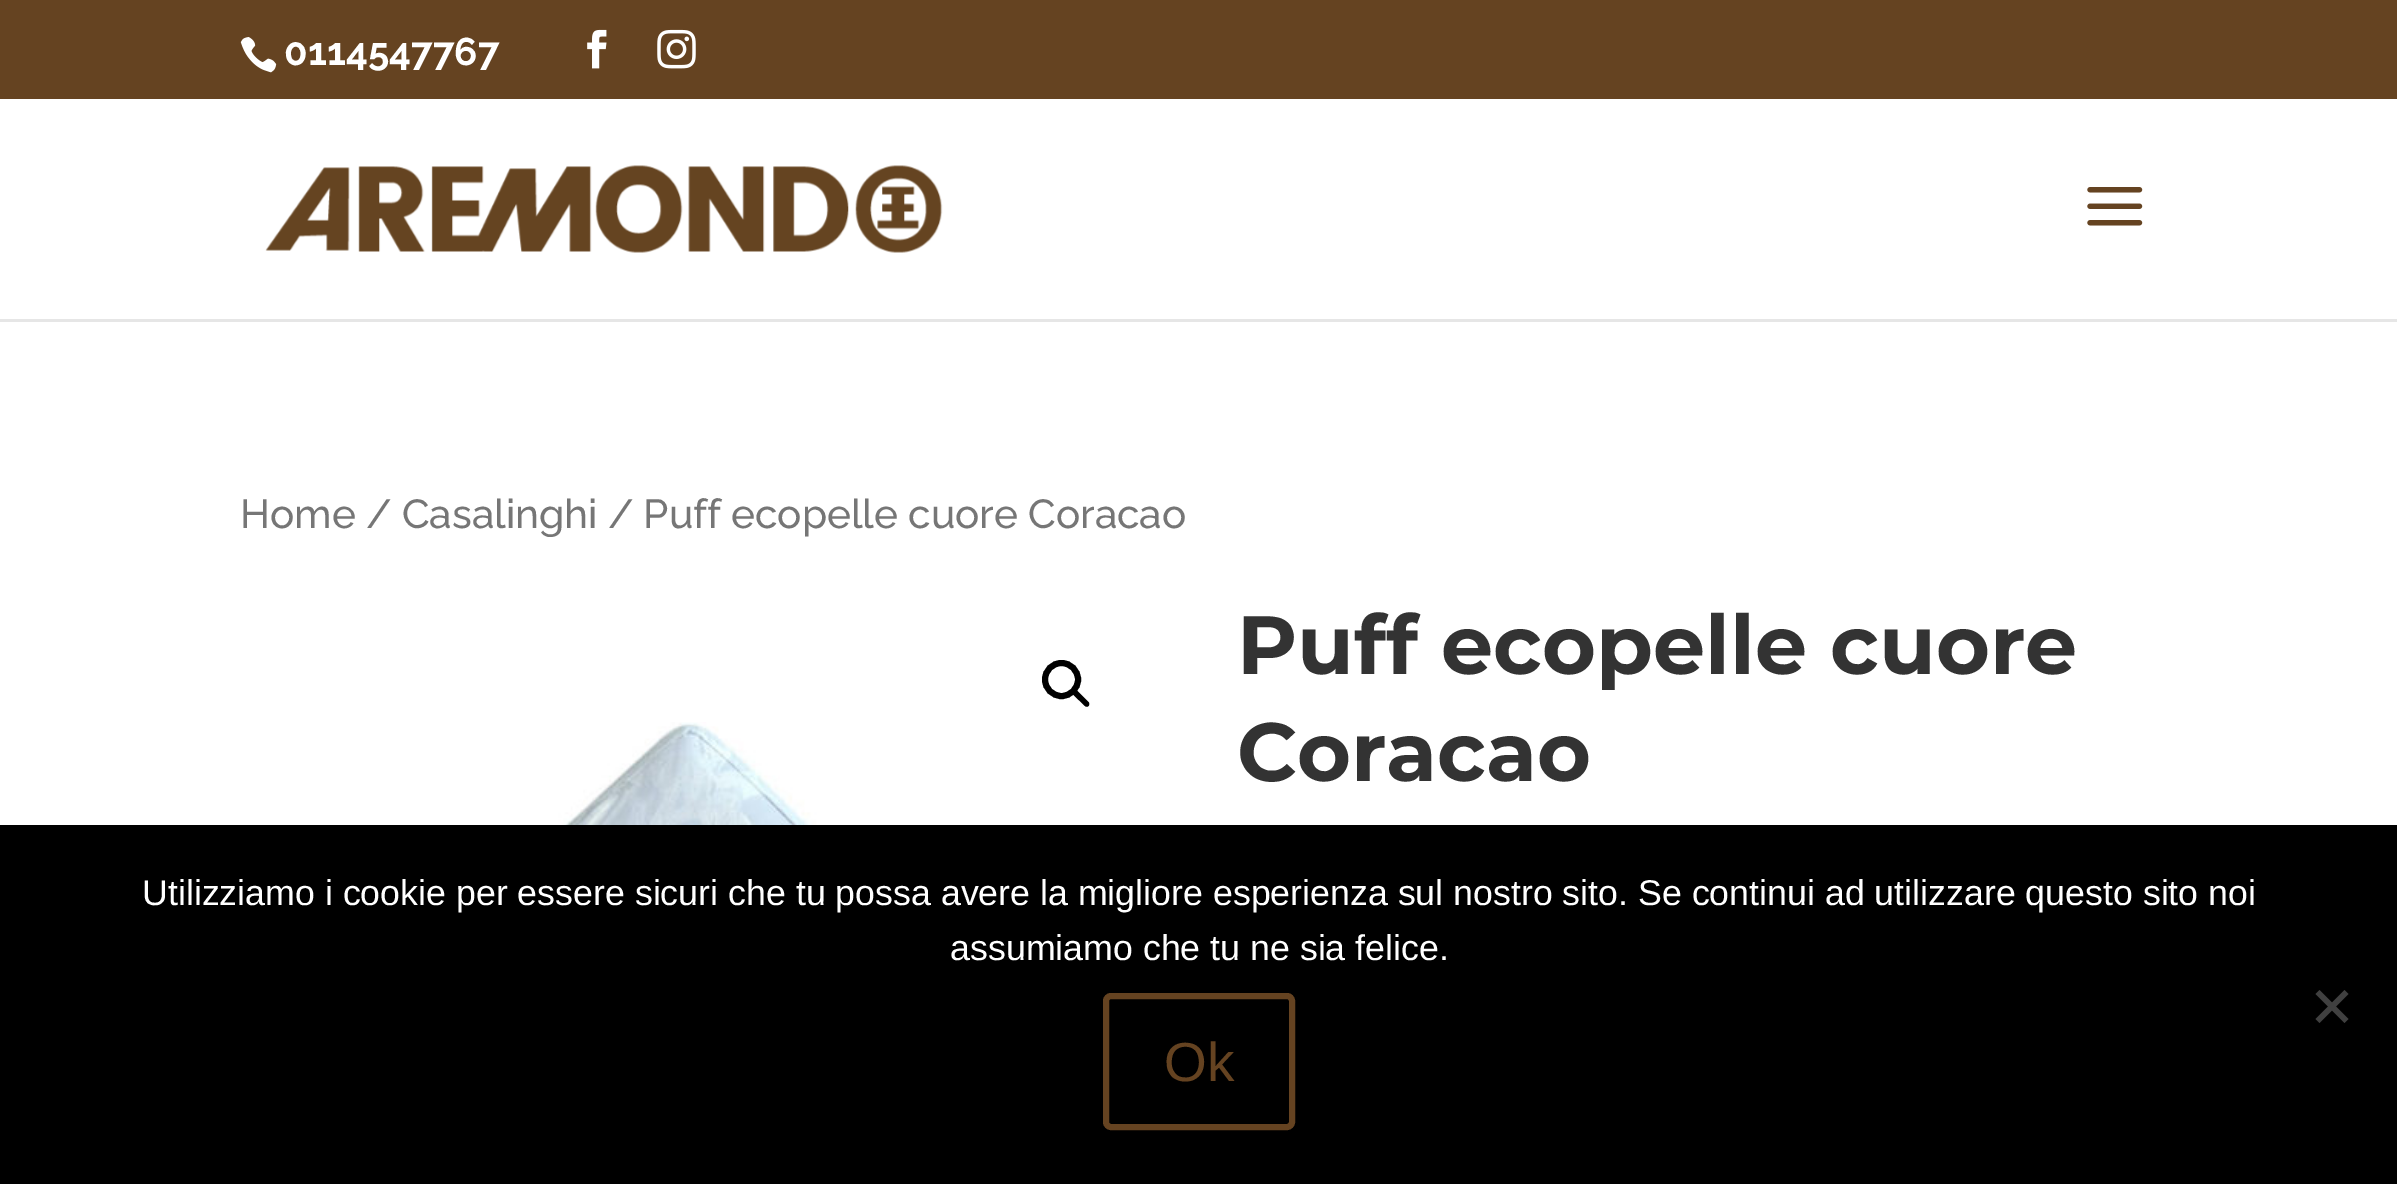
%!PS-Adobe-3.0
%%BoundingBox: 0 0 2397 1184
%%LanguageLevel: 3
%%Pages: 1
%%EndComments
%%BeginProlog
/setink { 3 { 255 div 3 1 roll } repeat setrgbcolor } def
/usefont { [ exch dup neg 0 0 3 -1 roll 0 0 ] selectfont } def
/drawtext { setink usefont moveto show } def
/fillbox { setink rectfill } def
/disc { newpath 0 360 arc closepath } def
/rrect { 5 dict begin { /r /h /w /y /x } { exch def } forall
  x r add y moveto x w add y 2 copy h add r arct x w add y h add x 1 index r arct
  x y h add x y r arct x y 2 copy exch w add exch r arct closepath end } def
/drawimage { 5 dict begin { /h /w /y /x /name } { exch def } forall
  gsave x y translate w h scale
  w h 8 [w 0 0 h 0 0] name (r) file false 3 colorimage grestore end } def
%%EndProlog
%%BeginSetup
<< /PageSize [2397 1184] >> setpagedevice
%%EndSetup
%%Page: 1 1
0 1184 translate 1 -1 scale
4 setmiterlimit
0 0 2397 1184 255 255 255 fillbox
0 0 2397 99 101 67 33 fillbox
(assets/img1.rgb) 240 37 37 36 drawimage
(0114547767) 284 65 /Raleway-Bold 38.5 255 255 255 drawtext
(assets/img2.rgb) 587 29 20 40 drawimage
(assets/img3.rgb) 657 29 39 40 drawimage
0 319 2397 3 230 230 230 fillbox
(assets/img4.rgb) 265 165 678 88 drawimage
(assets/img5.rgb) 2087 187 56 39 drawimage
(Home / Casalinghi / Puff ecopelle cuore Coracao) 240 528 /Raleway-Medium 40.5 118 118 118 drawtext
0 0 0 setink
6 setlinewidth
1061.5 679.5 16.5 disc stroke
1073 690.5 moveto 1074 689.5 1076 689.5 1077 690.5 curveto 1088.5 702 lineto 1089.5 703 1089.5 705 1088.5 706 curveto 1087.5 707 1086 707 1085 706 curveto 1073 694.5 lineto 1072 693.5 1072 691.5 1073 690.5 curveto closepath fill
(assets/img6.rgb) 313 722 729 103 drawimage
(Puff ecopelle cuore) 1237 674 /Montserrat-Bold 82.5 51 51 51 drawtext
(Coracao) 1237 781 /Montserrat-Bold 82.5 51 51 51 drawtext
0 825 2397 359 0 0 0 fillbox
(Utilizziamo i cookie per essere sicuri che tu possa avere la migliore esperienza sul nostro sito. Se continui ad utilizzare questo sito noi) 142 905 /LiberationSans-Regular 35.75 255 255 255 drawtext
(assumiamo che tu ne sia felice.) 950 960 /LiberationSans-Regular 35.75 255 255 255 drawtext
64 64 64 setink
2344.5 990 moveto 2348.5 994 lineto 2319.5 1023 lineto 2315.5 1019 lineto closepath fill
2315.5 994 moveto 2319.5 990 lineto 2348.5 1019 lineto 2344.5 1023 lineto closepath fill
101 67 33 setink
1106 996 186 131 5 rrect stroke
(Ok) 1164 1081 /LiberationSans-Regular 55 101 67 33 drawtext
showpage
%%EOF
